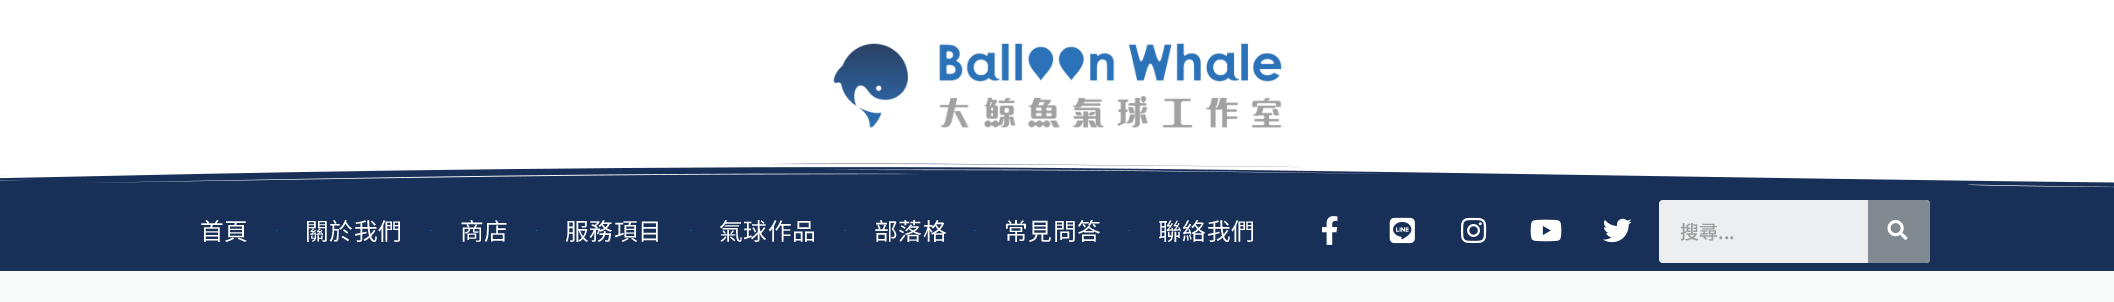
%!PS-Adobe-3.0
%%BoundingBox: 0 0 2114 302
%%LanguageLevel: 3
%%Pages: 1
%%EndComments
%%BeginProlog
/setink { 3 { 255 div 3 1 roll } repeat setrgbcolor } def
/usefont { [ exch dup neg 0 0 3 -1 roll 0 0 ] selectfont } def
/drawtext { setink usefont moveto show } def
/fillbox { setink rectfill } def
/rrect { 5 dict begin { /r /h /w /y /x } { exch def } forall
  x r add y moveto x w add y 2 copy h add r arct x w add y h add x 1 index r arct
  x y h add x y r arct x y 2 copy exch w add exch r arct closepath end } def
/drawimage { 5 dict begin { /h /w /y /x /name } { exch def } forall
  gsave x y translate w h scale
  w h 8 [w 0 0 h 0 0] name (r) file false 3 colorimage grestore end } def
%%EndProlog
%%BeginSetup
<< /PageSize [2114 302] >> setpagedevice
%%EndSetup
%%Page: 1 1
0 302 translate 1 -1 scale
4 setmiterlimit
0 0 2114 302 249 250 250 fillbox
0 0 2114 188 255 255 255 fillbox
(assets/img1.rgb) 833 43 449 85 drawimage
(assets/img2.rgb) 0 163 2114 27 drawimage
0 190 2114 81 24 48 88 fillbox
/NotoSansCJKTC-Regular 23.75 usefont
255 255 255 setink
200 240 moveto 0.5 0 (首頁) ashow
276 230 1 1 23 110 183 fillbox
255 255 255 setink
305 240 moveto 0.5 0 (關於我們) ashow
430 230 1 1 23 110 183 fillbox
255 255 255 setink
460 240 moveto 0.5 0 (商店) ashow
536 230 1 1 23 110 183 fillbox
255 255 255 setink
565 240 moveto 0.5 0 (服務項目) ashow
690 230 1 1 23 110 183 fillbox
255 255 255 setink
719 240 moveto 0.5 0 (氣球作品) ashow
845 230 1 1 23 110 183 fillbox
255 255 255 setink
874 240 moveto 0.5 0 (部落格) ashow
974 230 1 1 23 110 183 fillbox
255 255 255 setink
1004 240 moveto 0.5 0 (常見問答) ashow
1129 230 1 1 23 110 183 fillbox
255 255 255 setink
1158 240 moveto 0.5 0 (聯絡我們) ashow
(assets/img3.rgb) 1322 216 16 29 drawimage
(assets/img4.rgb) 1389 217 26 27 drawimage
(assets/img5.rgb) 1460 217 27 27 drawimage
(assets/img6.rgb) 1530 219 32 23 drawimage
(assets/img7.rgb) 1603 218 29 25 drawimage
236 238 239 setink
1659 200 271 63 4 rrect fill
(搜尋...) 1680 239 /NotoSansTC-Medium 19 156 156 157 drawtext
129 138 145 setink
1868 200 moveto 1926 200 lineto 1928 200 1930 202 1930 204 curveto 1930 259 lineto 1930 261 1928 263 1926 263 curveto 1868 263 lineto closepath fill
(assets/img8.rgb) 1887 220 21 20 drawimage
showpage
%%EOF
